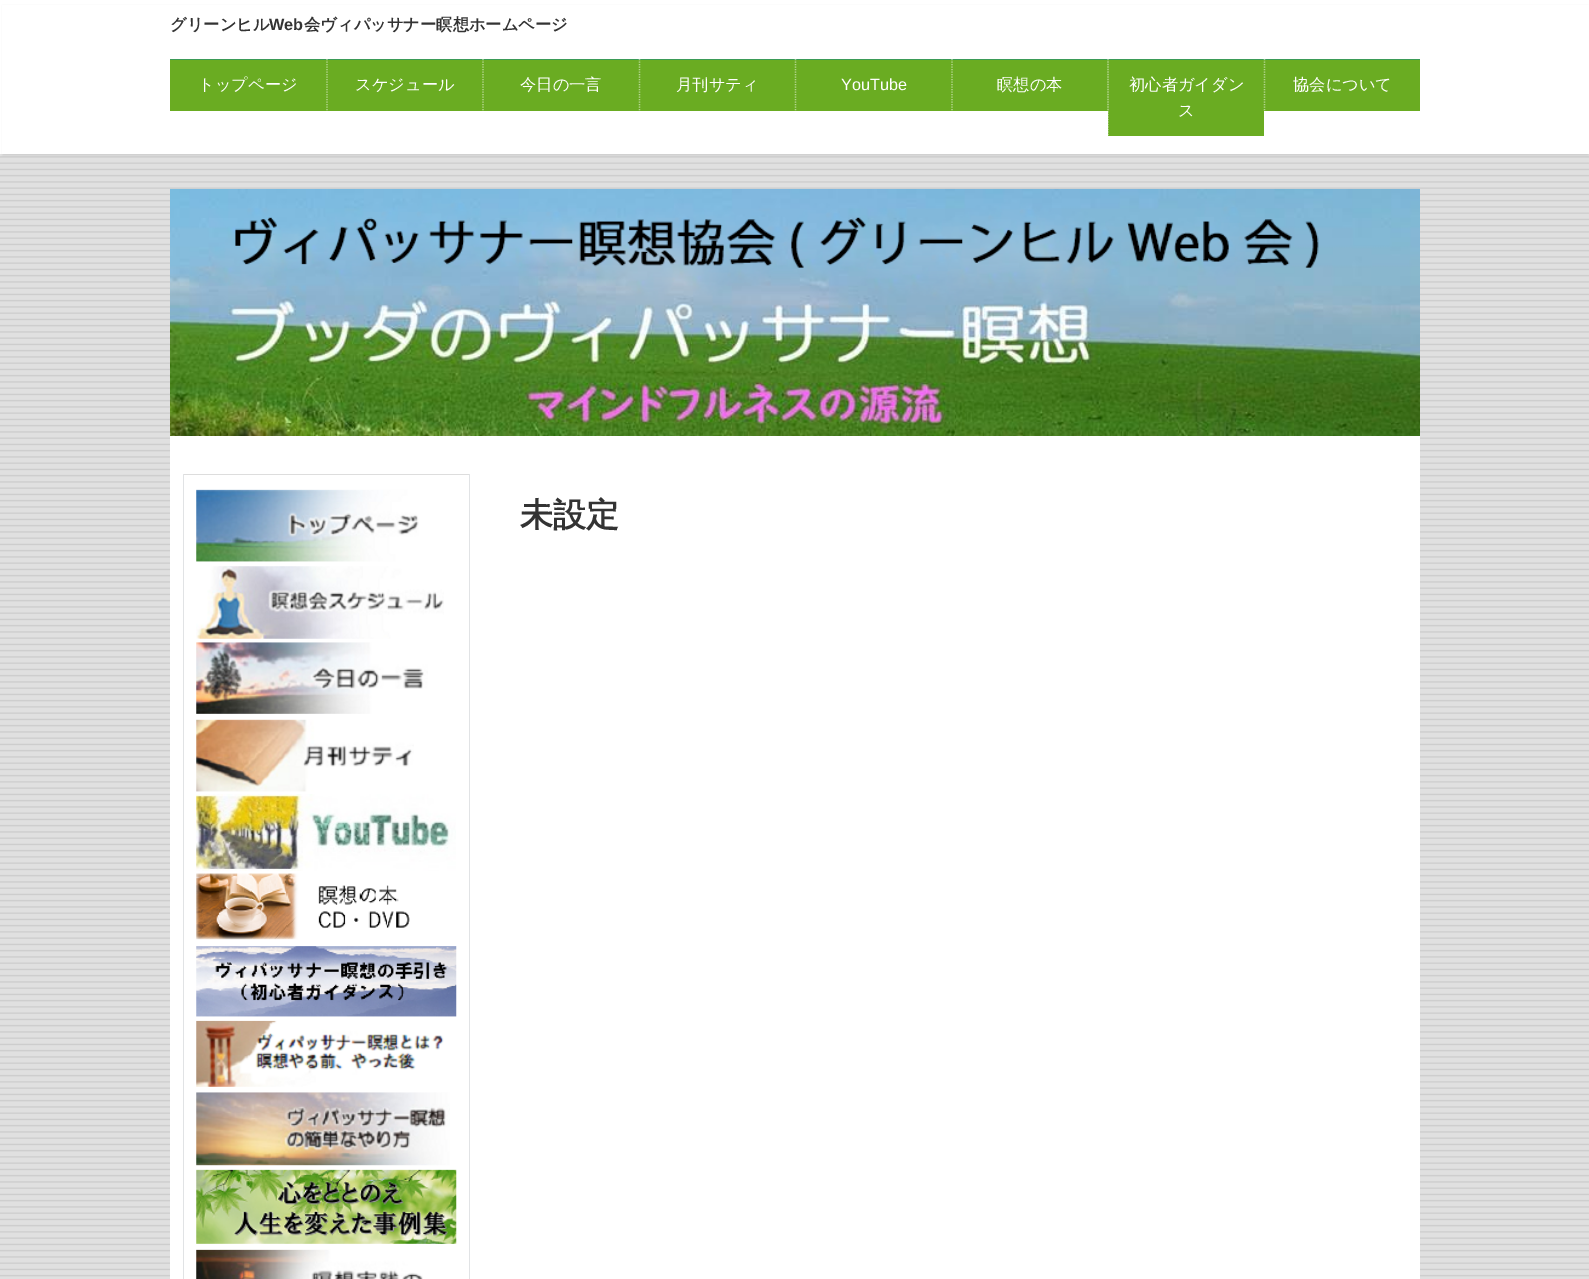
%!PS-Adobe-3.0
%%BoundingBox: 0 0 1589 1279
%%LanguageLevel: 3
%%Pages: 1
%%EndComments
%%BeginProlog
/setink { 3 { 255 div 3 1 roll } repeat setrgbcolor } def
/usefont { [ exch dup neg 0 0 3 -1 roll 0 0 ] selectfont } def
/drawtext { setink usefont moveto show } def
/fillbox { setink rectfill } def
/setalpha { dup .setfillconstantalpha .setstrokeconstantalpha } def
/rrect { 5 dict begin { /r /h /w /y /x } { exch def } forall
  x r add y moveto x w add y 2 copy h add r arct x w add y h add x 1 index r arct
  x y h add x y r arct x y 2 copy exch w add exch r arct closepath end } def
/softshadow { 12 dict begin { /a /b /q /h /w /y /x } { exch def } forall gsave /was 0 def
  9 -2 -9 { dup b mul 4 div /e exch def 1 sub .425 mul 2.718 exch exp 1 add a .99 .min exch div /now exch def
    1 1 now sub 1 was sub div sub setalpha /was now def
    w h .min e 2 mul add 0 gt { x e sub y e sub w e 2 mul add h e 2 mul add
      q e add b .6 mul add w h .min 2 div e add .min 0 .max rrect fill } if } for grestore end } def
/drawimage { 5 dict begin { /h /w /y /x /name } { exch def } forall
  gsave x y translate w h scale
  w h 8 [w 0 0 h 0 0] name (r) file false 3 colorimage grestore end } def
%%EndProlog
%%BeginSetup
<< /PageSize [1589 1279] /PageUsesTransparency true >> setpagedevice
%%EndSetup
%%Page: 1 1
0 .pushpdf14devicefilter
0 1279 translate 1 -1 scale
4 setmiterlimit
0 0 1589 1279 255 255 255 fillbox
(assets/img1.rgb) 0 154 1589 1125 drawimage
0 0 0 setink
3 6 1585 149 0 1 0.1 softshadow
2 5 1587 149 255 255 255 fillbox
(グリーンヒル) 170 30 /WenQuanYiZenHei-Bold 16.25 51 51 51 drawtext
(Web) 269 30 /LiberationSans-Bold 16.25 51 51 51 drawtext
(会ヴィパッサナー瞑想ホームページ) 304 30 /WenQuanYiZenHei-Bold 16.25 51 51 51 drawtext
170 60 156 51 106 172 34 fillbox
170 59 156 1 59 155 87 fillbox
(トップページ) 198 90 /WenQuanYiZenHei-Medium 16.25 255 255 255 drawtext
326 59 782 52 106 172 34 fillbox
59 155 87 setink
326 59 moveto 482 59 lineto 482 60 lineto 328 60 lineto closepath fill
0.5 setalpha
255 255 255 setink
1.2 setlinewidth
[1.25 1.25] 0 setdash
327 59 moveto 327 111 lineto stroke
1 setalpha
(スケジュール) 355 90 /WenQuanYiZenHei-Medium 16.25 255 255 255 drawtext
59 155 87 setink
482 59 moveto 639 59 lineto 639 60 lineto 484 60 lineto closepath fill
0.5 setalpha
255 255 255 setink
483 59 moveto 483 111 lineto stroke
1 setalpha
(今日の一言) 520 90 /WenQuanYiZenHei-Medium 16.25 255 255 255 drawtext
59 155 87 setink
639 59 moveto 795 59 lineto 795 60 lineto 640 60 lineto closepath fill
0.5 setalpha
255 255 255 setink
639.5 59 moveto 639.5 111 lineto stroke
1 setalpha
(月刊サティ) 676 90 /WenQuanYiZenHei-Medium 16.25 255 255 255 drawtext
59 155 87 setink
795 59 moveto 951 59 lineto 951 60 lineto 796 60 lineto closepath fill
0.5 setalpha
255 255 255 setink
795.5 59 moveto 795.5 111 lineto stroke
1 setalpha
(YouTube) 841 90 /LiberationSans-Regular 16.25 255 255 255 drawtext
59 155 87 setink
951 59 moveto 1108 59 lineto 1108 60 lineto 952 60 lineto closepath fill
0.5 setalpha
255 255 255 setink
952 59 moveto 952 111 lineto stroke
1 setalpha
(瞑想の本) 997 90 /WenQuanYiZenHei-Medium 16.25 255 255 255 drawtext
1108 59 156 77 106 172 34 fillbox
59 155 87 setink
1108 59 moveto 1264 59 lineto 1264 60 lineto 1109 60 lineto closepath fill
0.5 setalpha
255 255 255 setink
1108 59 moveto 1108 136 lineto stroke
1 setalpha
(初心者ガイダン) 1129 90 /WenQuanYiZenHei-Medium 16.25 255 255 255 drawtext
(ス) 1178 116 /WenQuanYiZenHei-Medium 16.25 255 255 255 drawtext
1264 59 156 52 106 172 34 fillbox
59 155 87 setink
1264 59 moveto 1420 59 lineto 1420 60 lineto 1265 60 lineto closepath fill
0.5 setalpha
255 255 255 setink
1264.5 59 moveto 1264.5 111 lineto stroke
1 setalpha
(協会について) 1293 90 /WenQuanYiZenHei-Medium 16.25 255 255 255 drawtext
(assets/img2.rgb) 170 188 1250 248 drawimage
170 436 1250 843 255 255 255 fillbox
183 474 287 1 221 221 221 fillbox
469 474 1 805 225 227 229 fillbox
183 474 1 805 225 227 229 fillbox
(assets/img3.rgb) 196 489 223 73 drawimage
(assets/img4.rgb) 196 566 248 73 drawimage
(assets/img5.rgb) 196 642 232 72 drawimage
(assets/img6.rgb) 196 719 218 73 drawimage
(assets/img7.rgb) 196 794 260 77 drawimage
(assets/img8.rgb) 196 873 214 67 drawimage
(assets/img9.rgb) 196 946 261 71 drawimage
(assets/img10.rgb) 196 1020 248 67 drawimage
(assets/img11.rgb) 196 1092 254 74 drawimage
(assets/img12.rgb) 196 1169 261 75 drawimage
(assets/img13.rgb) 196 1249 227 30 drawimage
(未設定) 520 526 /WenQuanYiZenHei-Bold 33 51 51 51 drawtext
.poppdf14devicefilter showpage
%%EOF
